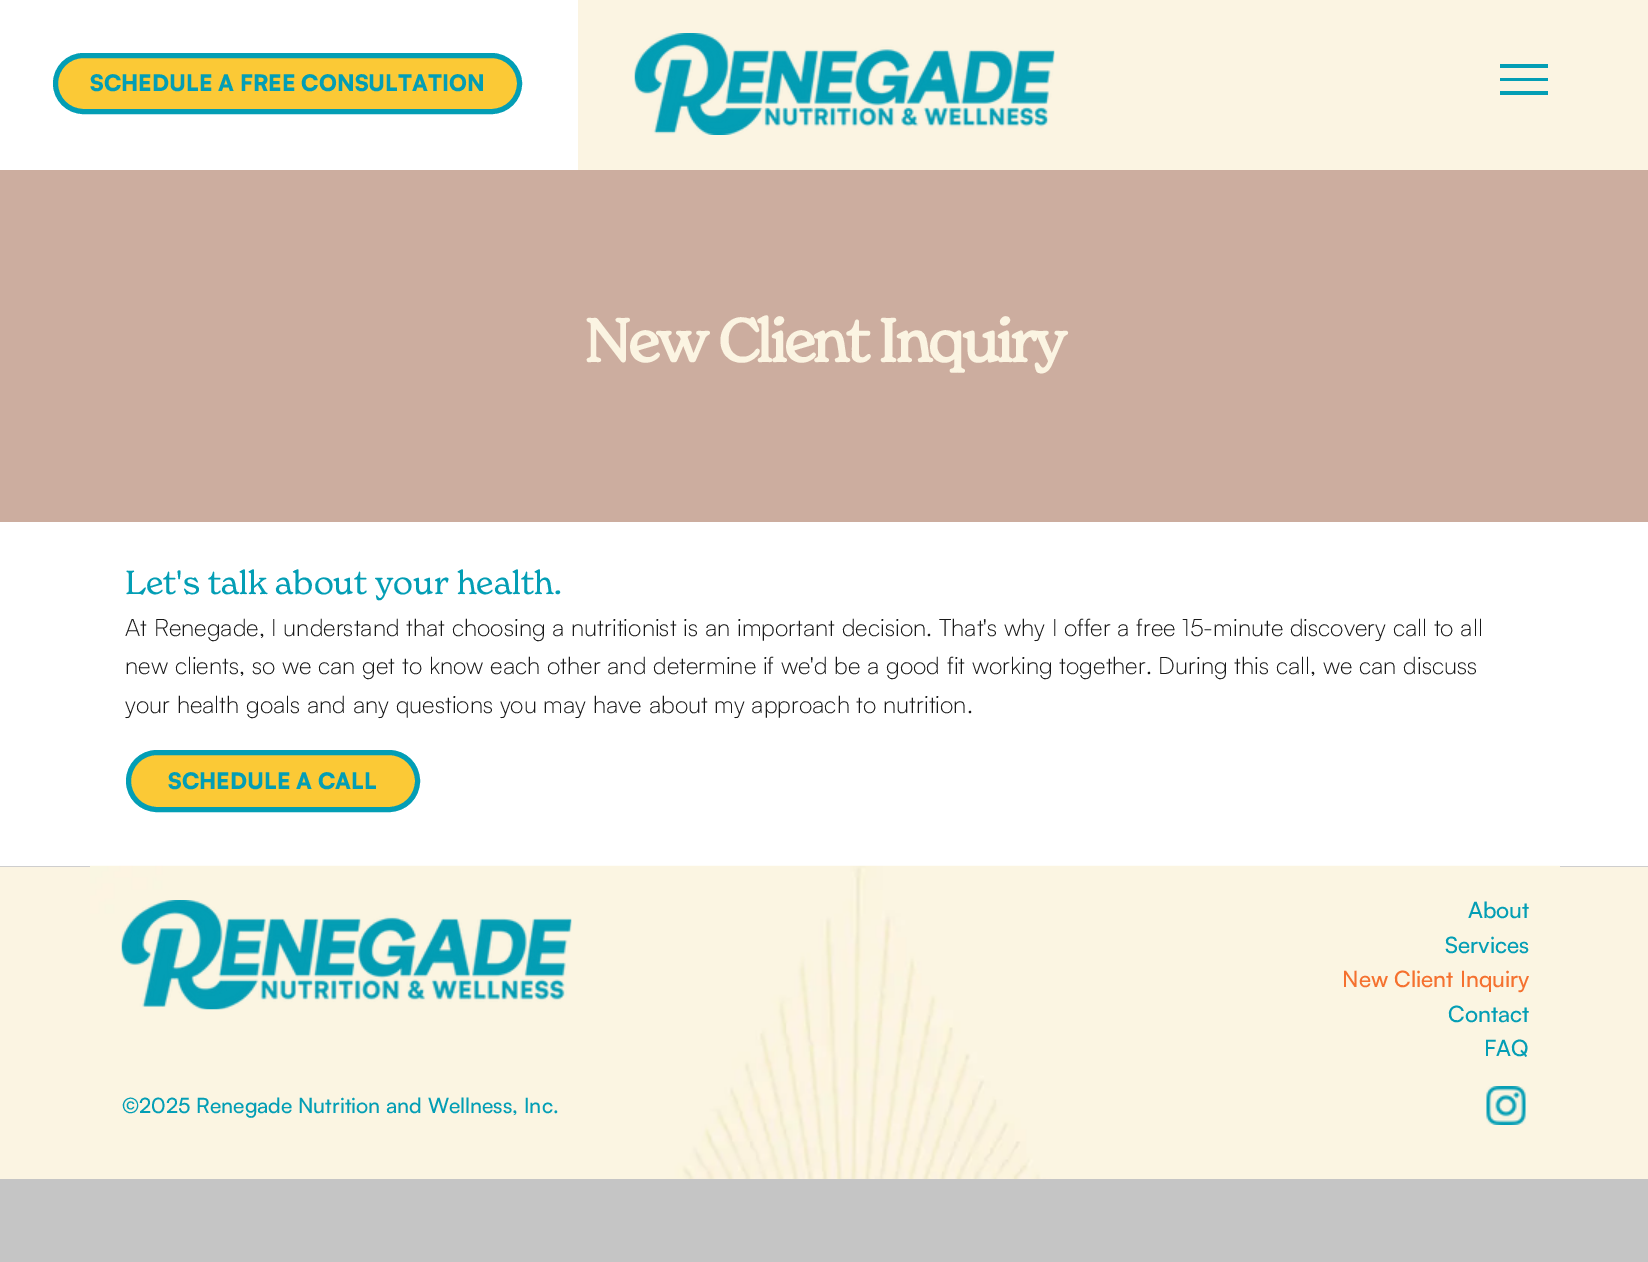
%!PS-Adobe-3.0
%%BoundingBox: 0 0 1648 1262
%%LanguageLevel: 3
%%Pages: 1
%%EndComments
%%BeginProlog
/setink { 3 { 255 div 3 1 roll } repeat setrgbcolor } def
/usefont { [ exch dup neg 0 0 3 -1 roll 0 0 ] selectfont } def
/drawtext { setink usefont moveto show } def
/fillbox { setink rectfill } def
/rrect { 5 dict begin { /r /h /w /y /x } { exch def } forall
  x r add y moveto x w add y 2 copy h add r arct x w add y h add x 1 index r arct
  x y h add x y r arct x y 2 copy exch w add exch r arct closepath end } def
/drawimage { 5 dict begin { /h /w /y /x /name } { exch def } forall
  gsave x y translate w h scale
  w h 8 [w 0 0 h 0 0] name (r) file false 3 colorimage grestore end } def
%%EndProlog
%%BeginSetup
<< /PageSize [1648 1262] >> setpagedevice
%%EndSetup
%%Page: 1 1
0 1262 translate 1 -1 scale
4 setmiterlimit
0 0 1648 1262 197 197 197 fillbox
0 0 578 170 255 255 255 fillbox
578 0 1070 170 251 244 226 fillbox
(assets/img1.rgb) 634 33 421 102 drawimage
251 201 54 setink
55.5 55.5 464 56 28 rrect gsave fill grestore
3 158 181 setink
5 setlinewidth
stroke
(SCHEDULE A FREE CONSULTATION) 90 91 /Satoshi-Black 22.5 3 158 181 drawtext
1500 91 48 4 3 158 181 fillbox
1500 64 48 4 3 158 181 fillbox
1500 78 48 3 3 158 181 fillbox
0 170 1648 352 204 173 159 fillbox
/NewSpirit-Bold 60 usefont
251 244 226 setink
584 362 moveto -3 0 (New Client Inquiry) ashow
0 522 1648 344 255 255 255 fillbox
(Let's talk about your health.) 125 594 /NewSpirit-Regular 33 3 158 181 drawtext
(At Renegade, I understand that choosing a nutritionist is an important decision. That's why I offer a free 15-minute discovery call to all) 125 636 /Satoshi-Light 24 24 24 24 drawtext
(new clients, so we can get to know each other and determine if we'd be a good fit working together. During this call, we can discuss) 125 674 /Satoshi-Light 24 24 24 24 drawtext
(your health goals and any questions you may have about my approach to nutrition.) 125 713 /Satoshi-Light 24 24 24 24 drawtext
251 201 54 setink
128.5 752.5 289 57 28.5 rrect gsave fill grestore
3 158 181 setink
stroke
(SCHEDULE A CALL) 168 789 /Satoshi-Black 22.5 3 158 181 drawtext
0 866 1648 1 206 206 206 fillbox
0 867 1648 312 251 244 226 fillbox
(assets/img2.rgb) 90 865 1470 314 drawimage
(assets/img3.rgb) 121 900 451 110 drawimage
(About) 1468 918 /Satoshi-Medium 22.5 3 158 181 drawtext
(Services) 1445 953 /Satoshi-Medium 22.5 3 158 181 drawtext
(New Client Inquiry) 1342 987 /Satoshi-Medium 22.5 245 113 47 drawtext
(Contact) 1448 1022 /Satoshi-Medium 22.5 3 158 181 drawtext
(FAQ) 1484 1056 /Satoshi-Medium 22.5 3 158 181 drawtext
(©2025 Renegade Nutrition and Wellness, Inc.) 122 1113 /Satoshi-Medium 21 3 158 181 drawtext
(assets/img4.rgb) 1486 1086 40 39 drawimage
showpage
%%EOF
